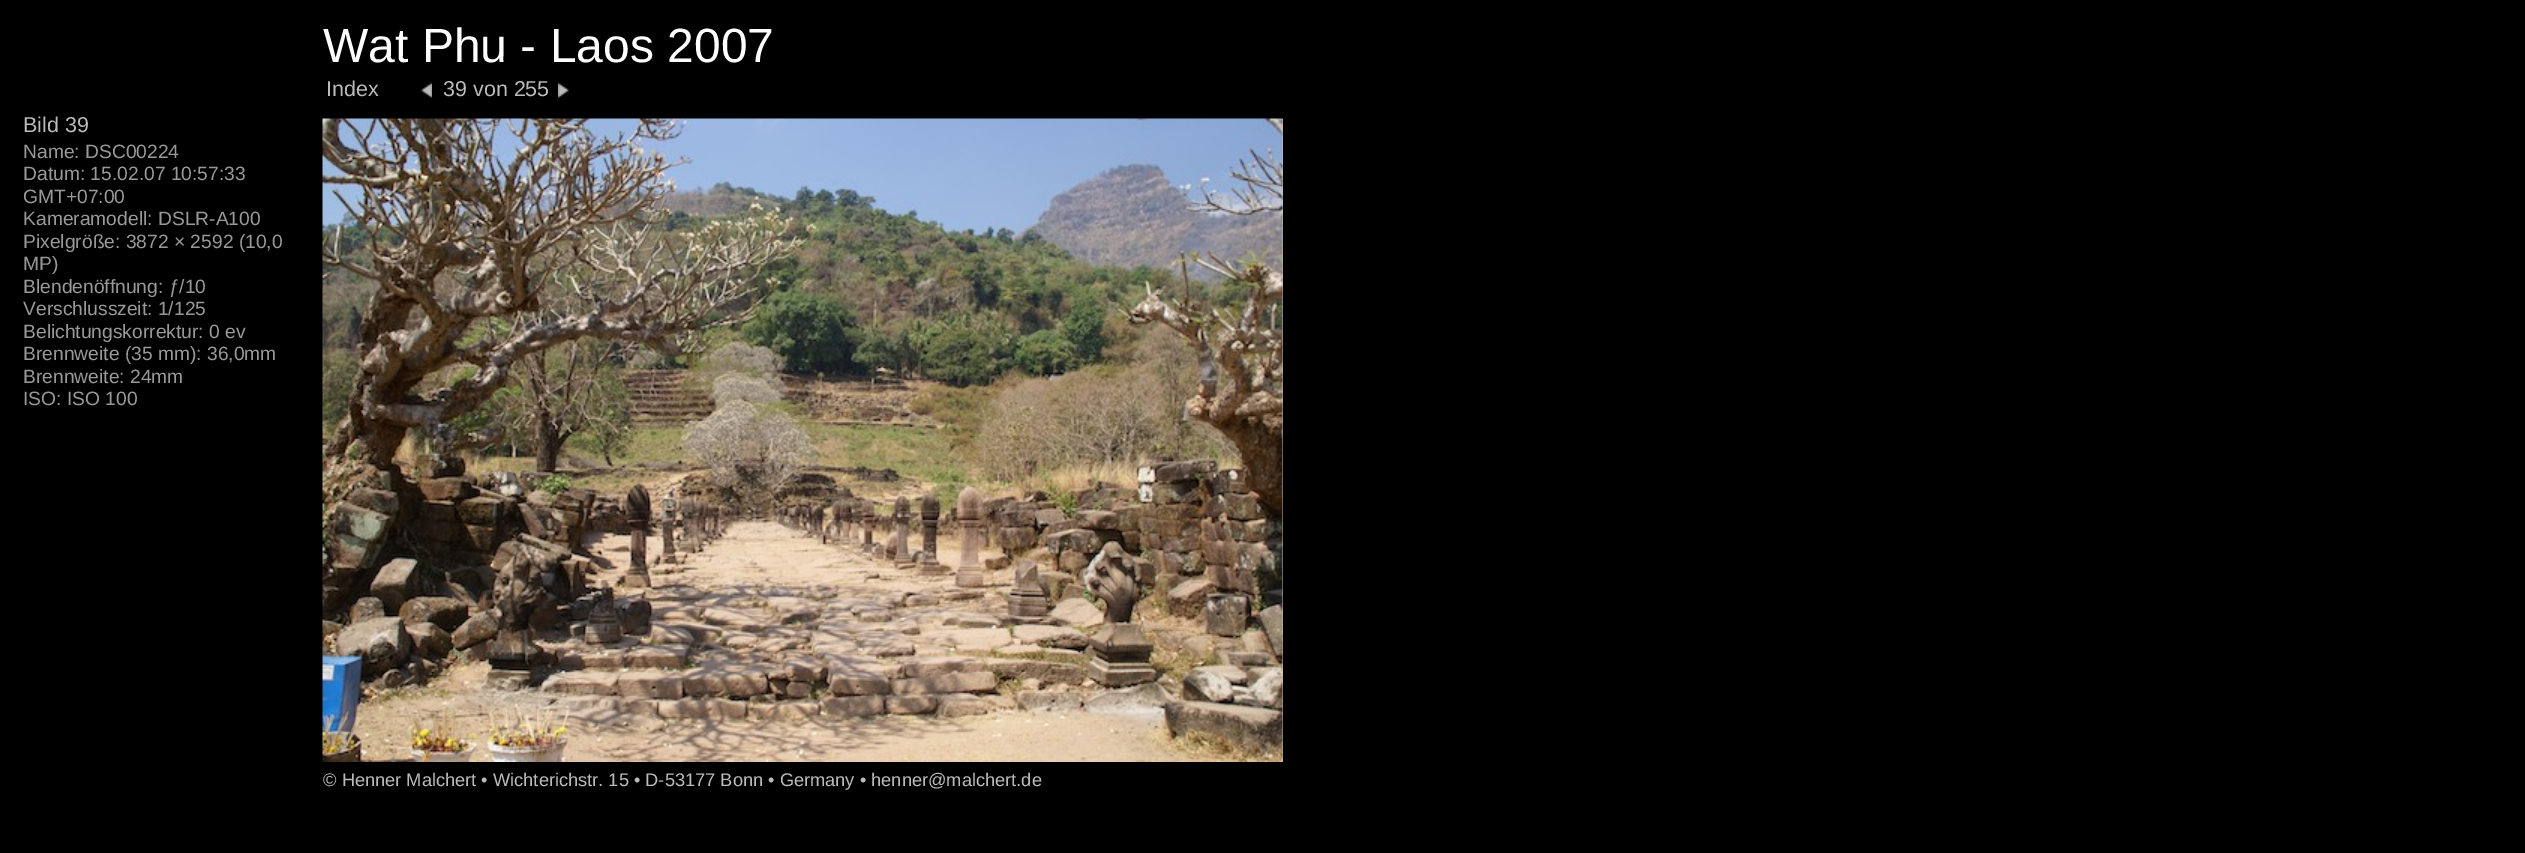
%!PS-Adobe-3.0
%%BoundingBox: 0 0 2525 853
%%LanguageLevel: 3
%%Pages: 1
%%EndComments
%%BeginProlog
/setink { 3 { 255 div 3 1 roll } repeat setrgbcolor } def
/usefont { [ exch dup neg 0 0 3 -1 roll 0 0 ] selectfont } def
/drawtext { setink usefont moveto show } def
/fillbox { setink rectfill } def
/drawimage { 5 dict begin { /h /w /y /x /name } { exch def } forall
  gsave x y translate w h scale
  w h 8 [w 0 0 h 0 0] name (r) file false 3 colorimage grestore end } def
%%EndProlog
%%BeginSetup
<< /PageSize [2525 853] >> setpagedevice
%%EndSetup
%%Page: 1 1
0 853 translate 1 -1 scale
4 setmiterlimit
0 0 2525 853 0 0 0 fillbox
(Wat Phu - Laos 2007) 323 62 /LiberationSans-Regular 48 255 255 255 drawtext
(Index) 326 96 /LiberationSans-Regular 21.5 187 187 187 drawtext
(assets/img1.rgb) 421 82 11 16 drawimage
(39 von 255) 443 96 /LiberationSans-Regular 21.5 187 187 187 drawtext
(assets/img2.rgb) 558 82 11 16 drawimage
(Bild 39) 23 132 /LiberationSans-Regular 21.5 187 187 187 drawtext
(Name: DSC00224) 23 158 /LiberationSans-Regular 19.25 153 153 153 drawtext
(Datum: 15.02.07 10:57:33) 23 180 /LiberationSans-Regular 19.25 153 153 153 drawtext
(GMT+07:00) 23 203 /LiberationSans-Regular 19.25 153 153 153 drawtext
(Kameramodell: DSLR-A100) 23 225 /LiberationSans-Regular 19.25 153 153 153 drawtext
(Pixelgröße: 3872 × 2592 \(10,0) 23 248 /LiberationSans-Regular 19.25 153 153 153 drawtext
(MP\)) 23 270 /LiberationSans-Regular 19.25 153 153 153 drawtext
(Blendenöffnung: ƒ/10) 23 293 /LiberationSans-Regular 19.25 153 153 153 drawtext
(Verschlusszeit: 1/125) 23 315 /LiberationSans-Regular 19.25 153 153 153 drawtext
(Belichtungskorrektur: 0 ev) 23 338 /LiberationSans-Regular 19.25 153 153 153 drawtext
(Brennweite \(35 mm\): 36,0mm) 23 360 /LiberationSans-Regular 19.25 153 153 153 drawtext
(Brennweite: 24mm) 23 383 /LiberationSans-Regular 19.25 153 153 153 drawtext
(ISO: ISO 100) 23 405 /LiberationSans-Regular 19.25 153 153 153 drawtext
1282 119 1 643 187 187 187 fillbox
(assets/img3.rgb) 322 118 961 644 drawimage
(© Henner Malchert • Wichterichstr. 15 • D-53177 Bonn • Germany • henner@malchert.de) 323 786 /LiberationSans-Regular 18.25 187 187 187 drawtext
showpage
%%EOF
